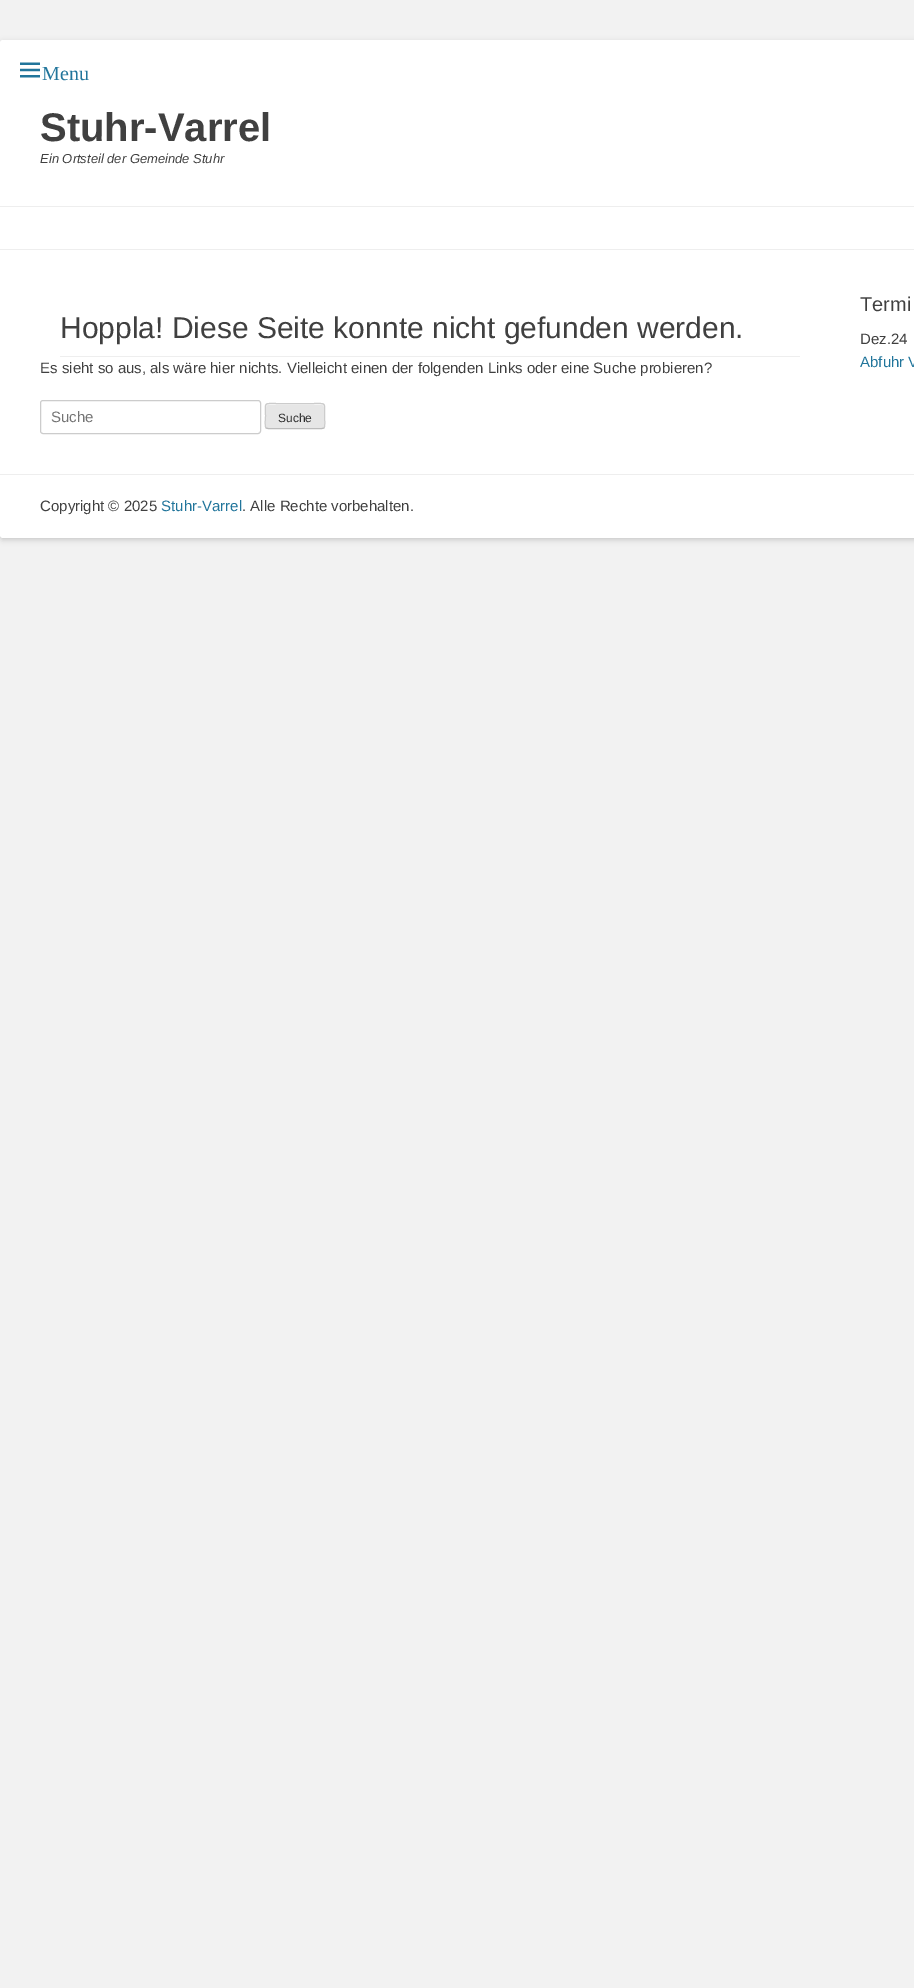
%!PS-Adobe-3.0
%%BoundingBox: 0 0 914 1988
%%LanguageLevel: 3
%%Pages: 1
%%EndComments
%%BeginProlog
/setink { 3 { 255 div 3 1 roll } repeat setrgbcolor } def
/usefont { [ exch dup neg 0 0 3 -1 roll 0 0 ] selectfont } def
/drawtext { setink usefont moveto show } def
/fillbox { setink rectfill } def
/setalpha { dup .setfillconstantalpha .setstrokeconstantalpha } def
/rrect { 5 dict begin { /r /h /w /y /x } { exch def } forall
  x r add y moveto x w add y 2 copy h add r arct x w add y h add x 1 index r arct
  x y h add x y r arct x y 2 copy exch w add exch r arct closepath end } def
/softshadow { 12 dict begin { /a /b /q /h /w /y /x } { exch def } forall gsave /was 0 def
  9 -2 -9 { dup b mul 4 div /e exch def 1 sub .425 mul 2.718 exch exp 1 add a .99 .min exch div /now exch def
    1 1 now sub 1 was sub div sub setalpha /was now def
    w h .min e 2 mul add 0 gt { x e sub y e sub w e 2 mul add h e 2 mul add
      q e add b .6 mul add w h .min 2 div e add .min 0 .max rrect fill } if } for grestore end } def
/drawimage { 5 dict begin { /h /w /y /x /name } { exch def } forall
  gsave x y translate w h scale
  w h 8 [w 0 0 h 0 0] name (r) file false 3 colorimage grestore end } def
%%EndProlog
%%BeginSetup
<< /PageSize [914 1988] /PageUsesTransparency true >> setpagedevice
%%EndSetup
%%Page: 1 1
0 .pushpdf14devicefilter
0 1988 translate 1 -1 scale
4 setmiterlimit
0 0 914 1988 242 242 242 fillbox
100 100 100 setink
0 42 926 498 3 3 0.3 softshadow
255 255 255 setink
0 40 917 498 3 rrect fill
(assets/img1.rgb) 20 62 20 16 drawimage
(Menu) 42 80 /LiberationSerif-Regular 20 33 117 155 drawtext
(Stuhr-Varrel) 40 141 /LiberationSans-Bold 40 64 64 64 drawtext
(Ein Ortsteil der Gemeinde Stuhr) 40 163 /LiberationSans-Italic 13 64 64 64 drawtext
0 206 914 1 238 238 238 fillbox
0 249 914 1 238 238 238 fillbox
60 356 740 1 238 238 238 fillbox
(Hoppla! Diese Seite konnte nicht gefunden werden.) 60 338 /LiberationSans-Regular 30 64 64 64 drawtext
(Es sieht so aus, als wäre hier nichts. Vielleicht einen der folgenden Links oder eine Suche probieren?) 40 373 /LiberationSans-Regular 15 64 64 64 drawtext
204 204 204 setink
40.5 400.5 220 33 2.5 rrect stroke
(Suche) 51 422 /LiberationSans-Regular 15 117 117 117 drawtext
230 230 230 setink
265 403 60 26 3 rrect fill
243 243 243 setink
268 405 moveto 322 405 lineto 323 405 324 406 324 407 curveto 324 402 317 404 313 404 curveto 277 404 lineto 273 404 266 402 266 407 curveto 266 406 267 405 268 405 curveto closepath fill
187 187 187 setink
324 428 moveto 322 428.5 lineto 268 428.5 lineto 266 428 lineto stroke
204 204 204 setink
266 428 moveto 264.5 426 265.5 418.5 265.5 416 curveto 265.5 402 263 403.5 277 403.5 curveto 313 403.5 lineto 327 403.5 324.5 402 324.5 416 curveto 324.5 418.5 325.5 426 324 428 curveto stroke
(Suche) 278 422 /LiberationSans-Regular 12 46 46 46 drawtext
(Termi) 860 311 /LiberationSans-Regular 20 64 64 64 drawtext
(Dez.24) 860 344 /LiberationSans-Regular 15 64 64 64 drawtext
(Abfuhr V) 860 367 /LiberationSans-Regular 15 33 117 155 drawtext
0 474 914 1 238 238 238 fillbox
(Copyright © 2025) 40 511 /LiberationSans-Regular 15 64 64 64 drawtext
(Stuhr-Varrel) 161 511 /LiberationSans-Regular 15 33 117 155 drawtext
(. Alle Rechte vorbehalten.) 242 511 /LiberationSans-Regular 15 64 64 64 drawtext
.poppdf14devicefilter showpage
%%EOF
